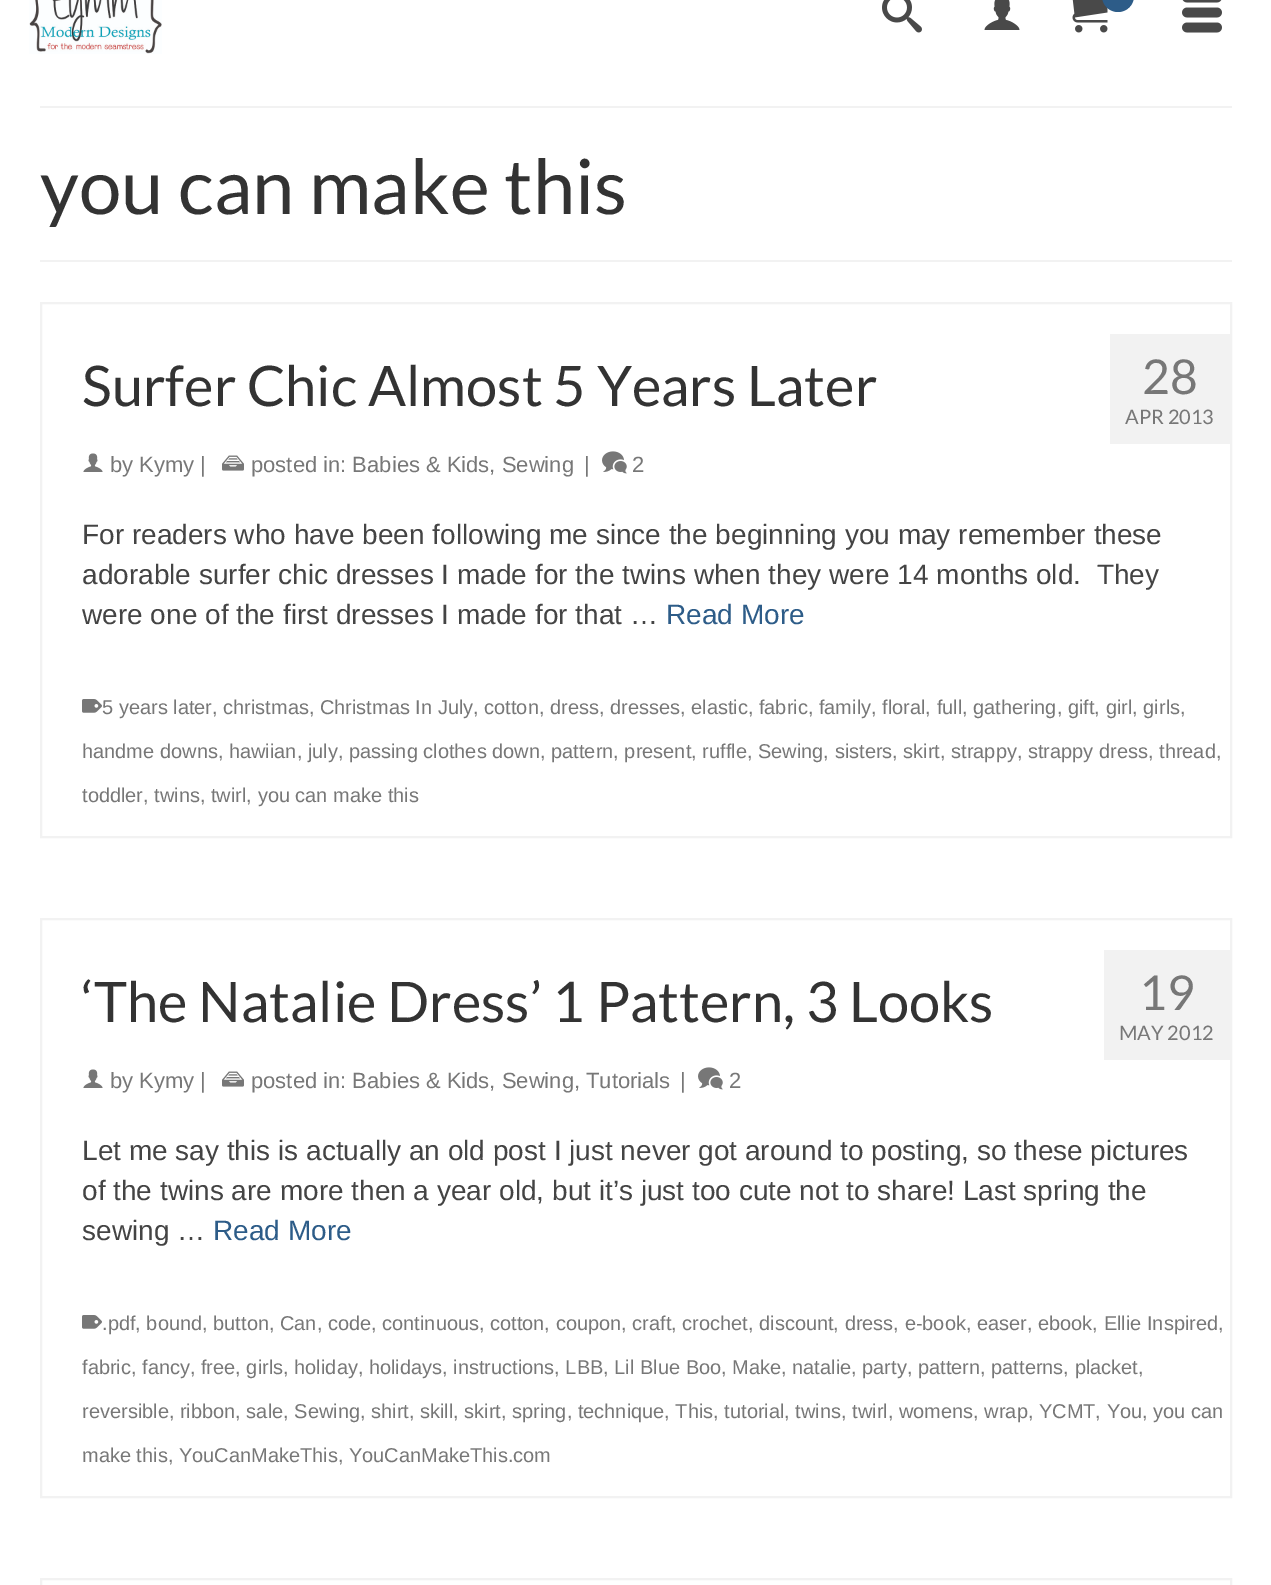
%!PS-Adobe-3.0
%%BoundingBox: 0 0 1271 1585
%%LanguageLevel: 3
%%Pages: 1
%%EndComments
%%BeginProlog
/setink { 3 { 255 div 3 1 roll } repeat setrgbcolor } def
/usefont { [ exch dup neg 0 0 3 -1 roll 0 0 ] selectfont } def
/drawtext { setink usefont moveto show } def
/fillbox { setink rectfill } def
/rrect { 5 dict begin { /r /h /w /y /x } { exch def } forall
  x r add y moveto x w add y 2 copy h add r arct x w add y h add x 1 index r arct
  x y h add x y r arct x y 2 copy exch w add exch r arct closepath end } def
/drawimage { 5 dict begin { /h /w /y /x /name } { exch def } forall
  gsave x y translate w h scale
  w h 8 [w 0 0 h 0 0] name (r) file false 3 colorimage grestore end } def
%%EndProlog
%%BeginSetup
<< /PageSize [1271 1585] >> setpagedevice
%%EndSetup
%%Page: 1 1
0 1585 translate 1 -1 scale
4 setmiterlimit
0 0 1271 1585 255 255 255 fillbox
(assets/img1.rgb) 29 0 133 54 drawimage
(assets/img2.rgb) 882 0 40 33 drawimage
(assets/img3.rgb) 984 0 36 30 drawimage
(assets/img4.rgb) 1072 0 36 33 drawimage
45 92 136 setink
1102 -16 32 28 16 rrect fill
(assets/img5.rgb) 1182 0 40 33 drawimage
40 106 1192 2 242 242 242 fillbox
40 260 1192 2 242 242 242 fillbox
(you can make this) 40 214 /Lato-Regular 76 51 51 51 drawtext
242 242 242 setink
2 setlinewidth
41 303 1190 534 rectstroke
(Surfer Chic Almost 5 Years Later) 82 406 /Lato-Regular 56 51 51 51 drawtext
(assets/img6.rgb) 83 453 20 19 drawimage
(by Kymy |) 110 472 /LiberationSans-Regular 22 119 119 119 drawtext
(assets/img7.rgb) 222 455 22 16 drawimage
(posted in: Babies & Kids, Sewing) 251 472 /LiberationSans-Regular 22 119 119 119 drawtext
(|) 584 472 /LiberationSans-Regular 22 119 119 119 drawtext
(assets/img8.rgb) 602 451 25 23 drawimage
(2) 632 472 /LiberationSans-Regular 22 119 119 119 drawtext
1110 334 120 110 242 242 242 fillbox
(28) 1142 394 /Lato-Regular 48 119 119 119 drawtext
(APR 2013) 1125 424 /Lato-Regular 20 119 119 119 drawtext
(For readers who have been following me since the beginning you may remember these) 82 544 /LiberationSans-Regular 28 68 68 68 drawtext
(adorable surfer chic dresses I made for the twins when they were 14 months old.  They) 82 584 /LiberationSans-Regular 28 68 68 68 drawtext
(were one of the first dresses I made for that …) 82 624 /LiberationSans-Regular 28 68 68 68 drawtext
(Read More) 666 624 /LiberationSans-Regular 28 45 92 136 drawtext
(assets/img9.rgb) 82 699 20 14 drawimage
(5 years later, christmas, Christmas In July, cotton, dress, dresses, elastic, fabric, family, floral, full, gathering, gift, girl, girls,) 102 714 /LiberationSans-Regular 20 119 119 119 drawtext
(handme downs, hawiian, july, passing clothes down, pattern, present, ruffle, Sewing, sisters, skirt, strappy, strappy dress, thread,) 82 758 /LiberationSans-Regular 20 119 119 119 drawtext
(toddler, twins, twirl, you can make this) 82 802 /LiberationSans-Regular 20 119 119 119 drawtext
242 242 242 setink
41 919 1190 578 rectstroke
(‘The Natalie Dress’ 1 Pattern, 3 Looks) 82 1022 /Lato-Regular 56 51 51 51 drawtext
(assets/img6.rgb) 83 1069 20 19 drawimage
(by Kymy |) 110 1088 /LiberationSans-Regular 22 119 119 119 drawtext
(assets/img7.rgb) 222 1071 22 16 drawimage
(posted in: Babies & Kids, Sewing, Tutorials) 251 1088 /LiberationSans-Regular 22 119 119 119 drawtext
(|) 680 1088 /LiberationSans-Regular 22 119 119 119 drawtext
(assets/img8.rgb) 698 1067 25 23 drawimage
(2) 729 1088 /LiberationSans-Regular 22 119 119 119 drawtext
1104 950 126 110 242 242 242 fillbox
(19) 1139 1010 /Lato-Regular 48 119 119 119 drawtext
(MAY 2012) 1119 1040 /Lato-Regular 20 119 119 119 drawtext
(Let me say this is actually an old post I just never got around to posting, so these pictures) 82 1160 /LiberationSans-Regular 28 68 68 68 drawtext
(of the twins are more then a year old, but it’s just too cute not to share! Last spring the) 82 1200 /LiberationSans-Regular 28 68 68 68 drawtext
(sewing …) 82 1240 /LiberationSans-Regular 28 68 68 68 drawtext
(Read More) 213 1240 /LiberationSans-Regular 28 45 92 136 drawtext
(assets/img9.rgb) 82 1315 20 14 drawimage
(.pdf, bound, button, Can, code, continuous, cotton, coupon, craft, crochet, discount, dress, e-book, easer, ebook, Ellie Inspired,) 102 1330 /LiberationSans-Regular 20 119 119 119 drawtext
(fabric, fancy, free, girls, holiday, holidays, instructions, LBB, Lil Blue Boo, Make, natalie, party, pattern, patterns, placket,) 82 1374 /LiberationSans-Regular 20 119 119 119 drawtext
(reversible, ribbon, sale, Sewing, shirt, skill, skirt, spring, technique, This, tutorial, twins, twirl, womens, wrap, YCMT, You, you can) 82 1418 /LiberationSans-Regular 20 119 119 119 drawtext
(make this, YouCanMakeThis, YouCanMakeThis.com) 82 1462 /LiberationSans-Regular 20 119 119 119 drawtext
242 242 242 setink
41 1579 1190 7 rectstroke
showpage
%%EOF
